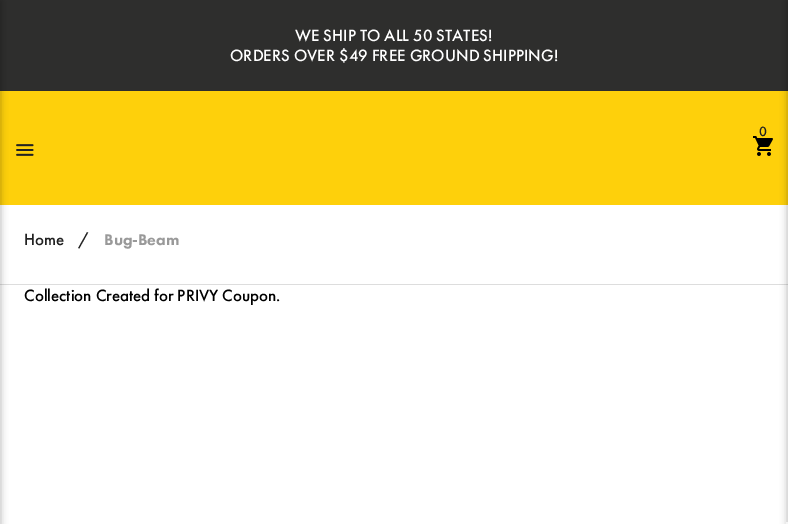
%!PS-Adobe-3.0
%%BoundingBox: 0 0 788 524
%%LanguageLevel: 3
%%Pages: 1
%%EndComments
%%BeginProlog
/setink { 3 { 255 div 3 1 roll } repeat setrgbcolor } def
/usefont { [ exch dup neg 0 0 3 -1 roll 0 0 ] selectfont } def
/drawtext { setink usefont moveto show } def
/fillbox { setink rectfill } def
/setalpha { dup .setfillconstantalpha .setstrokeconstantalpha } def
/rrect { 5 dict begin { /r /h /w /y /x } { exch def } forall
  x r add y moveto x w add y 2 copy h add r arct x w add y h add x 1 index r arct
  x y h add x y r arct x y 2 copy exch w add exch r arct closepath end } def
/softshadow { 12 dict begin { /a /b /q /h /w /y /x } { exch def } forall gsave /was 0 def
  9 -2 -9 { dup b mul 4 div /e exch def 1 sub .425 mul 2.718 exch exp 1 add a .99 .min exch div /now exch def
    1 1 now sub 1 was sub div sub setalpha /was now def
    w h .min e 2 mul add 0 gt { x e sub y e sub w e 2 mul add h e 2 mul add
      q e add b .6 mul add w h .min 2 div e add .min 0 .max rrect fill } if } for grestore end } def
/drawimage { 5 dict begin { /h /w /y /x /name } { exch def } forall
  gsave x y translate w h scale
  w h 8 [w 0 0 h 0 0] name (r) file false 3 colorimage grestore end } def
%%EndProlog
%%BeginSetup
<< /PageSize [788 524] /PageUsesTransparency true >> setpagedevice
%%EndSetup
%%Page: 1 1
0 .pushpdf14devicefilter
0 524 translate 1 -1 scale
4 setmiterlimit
0 0 788 524 255 255 255 fillbox
0 91 788 114 254 208 11 fillbox
0 0 788 91 46 46 45 fillbox
0 284 788 1 221 221 221 fillbox
0 0 0 setink
-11 1 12 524 0 3.5 0.25 softshadow
(WE SHIP TO ALL 50 STATES!) 295 41 /FuturaPT-Medium 17 255 255 255 drawtext
(ORDERS OVER $49 FREE GROUND SHIPPING!) 230 61 /FuturaPT-Medium 17 255 255 255 drawtext
(assets/img1.rgb) 753 136 20 20 drawimage
(0) 759 136 /FuturaPT-Medium 14 34 34 34 drawtext
(assets/img2.rgb) 16 144 18 12 drawimage
0 0 0 setink
787 1 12 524 0 3.5 0.25 softshadow
(Home) 24 245 /FuturaPT-Medium 17 34 34 34 drawtext
(/) 78 245 /FuturaPT-Medium 17 34 34 34 drawtext
(Bug-Beam) 104 245 /FuturaPT-Black 16 153 153 153 drawtext
(Collection Created for PRIVY Coupon.) 24 301 /FuturaPT-Medium 17 0 0 0 drawtext
786 522 2 2 245 245 245 fillbox
.poppdf14devicefilter showpage
%%EOF
